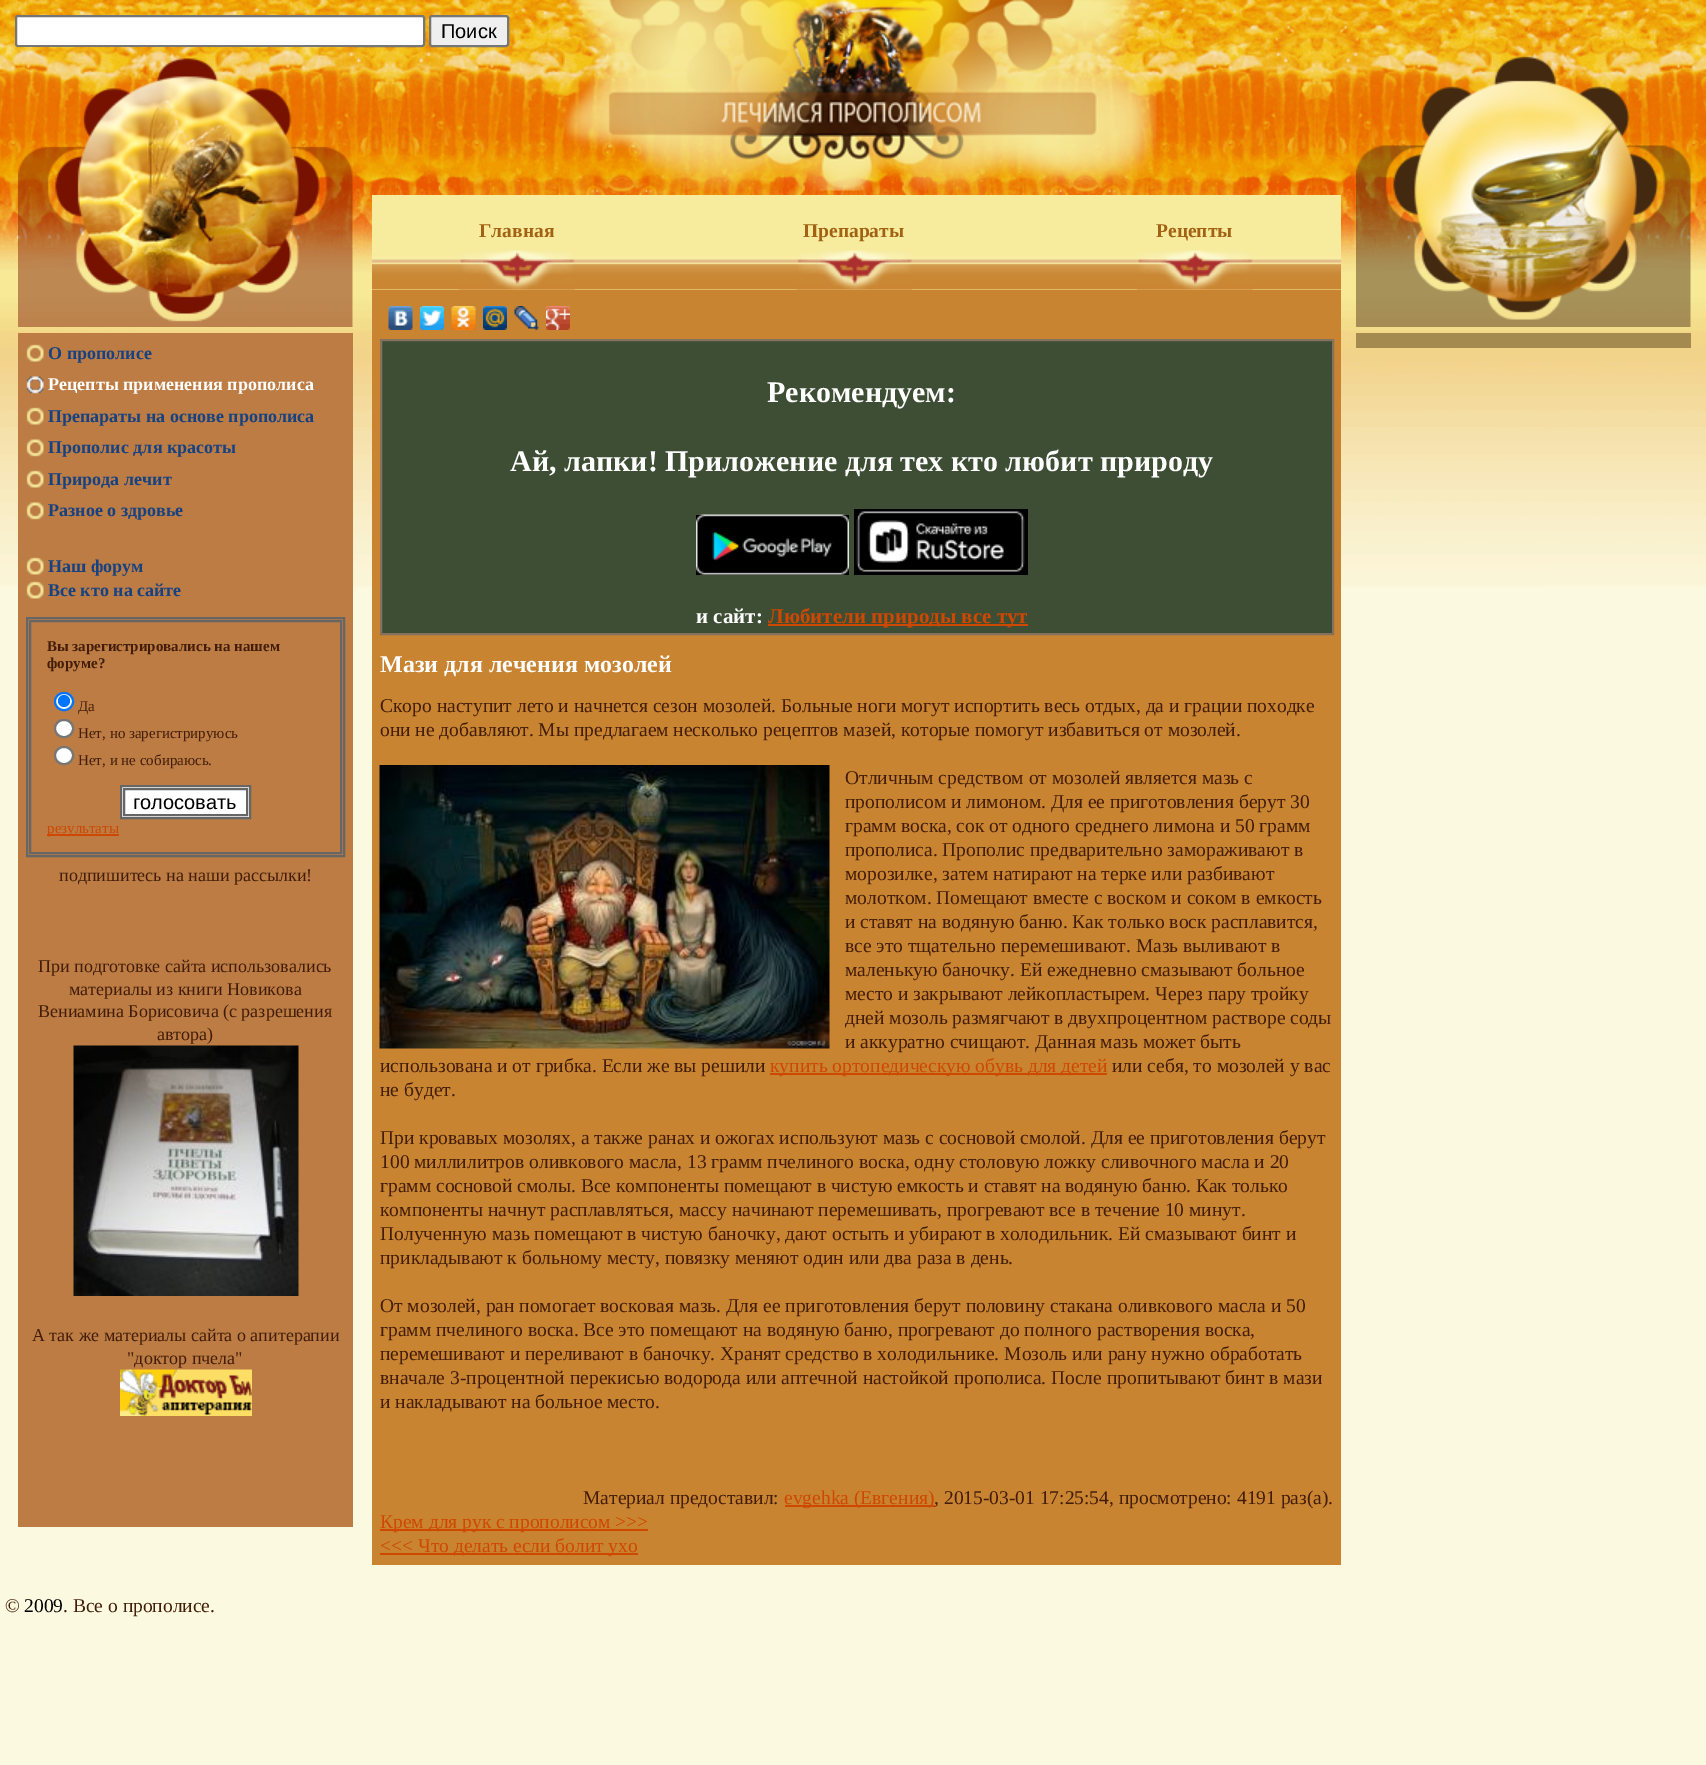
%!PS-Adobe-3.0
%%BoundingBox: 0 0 1706 1765
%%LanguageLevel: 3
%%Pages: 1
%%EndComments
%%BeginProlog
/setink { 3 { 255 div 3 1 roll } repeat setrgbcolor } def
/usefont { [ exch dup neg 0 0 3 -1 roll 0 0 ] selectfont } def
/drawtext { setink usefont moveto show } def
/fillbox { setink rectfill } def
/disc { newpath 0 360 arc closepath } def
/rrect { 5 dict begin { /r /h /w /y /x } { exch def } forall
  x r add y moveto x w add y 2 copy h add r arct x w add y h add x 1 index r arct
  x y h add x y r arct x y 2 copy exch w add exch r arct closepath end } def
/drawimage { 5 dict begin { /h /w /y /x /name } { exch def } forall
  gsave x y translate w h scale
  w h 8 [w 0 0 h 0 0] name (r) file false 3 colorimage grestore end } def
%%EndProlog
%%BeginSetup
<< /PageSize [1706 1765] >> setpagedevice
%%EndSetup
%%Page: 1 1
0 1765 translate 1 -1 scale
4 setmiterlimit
0 0 1706 1765 251 249 223 fillbox
(assets/img1.rgb) 0 0 1706 587 drawimage
255 255 255 setink
16 16 408 30 2 rrect gsave fill grestore
118 118 118 setink
2 setlinewidth
stroke
239 239 239 setink
430 16 78 30 2 rrect gsave fill grestore
118 118 118 setink
stroke
(Поиск) 441 38 /LiberationSans-Regular 20 0 0 0 drawtext
(assets/img2.rgb) 18 47 336 280 drawimage
18 333 335 1194 188 124 67 fillbox
(assets/img3.rgb) 26 344 18 18 drawimage
(О прополисе) 48 359 /LiberationSerif-Bold 18 22 66 130 drawtext
(assets/img4.rgb) 26 376 18 18 drawimage
(Рецепты применения прополиса) 48 390 /LiberationSerif-Bold 18 255 255 255 drawtext
(assets/img3.rgb) 26 407 18 18 drawimage
(Препараты на основе прополиса) 48 422 /LiberationSerif-Bold 18 22 66 130 drawtext
(assets/img5.rgb) 26 439 18 18 drawimage
(Прополис для красоты) 48 453 /LiberationSerif-Bold 18 22 66 130 drawtext
(assets/img3.rgb) 26 470 18 18 drawimage
(Природа лечит) 48 485 /LiberationSerif-Bold 18 22 66 130 drawtext
(assets/img5.rgb) 26 502 18 18 drawimage
(Разное о здровье) 48 516 /LiberationSerif-Bold 18 22 66 130 drawtext
(assets/img3.rgb) 26 557 18 18 drawimage
(Наш форум) 48 572 /LiberationSerif-Bold 18 22 66 130 drawtext
(assets/img3.rgb) 26 581 18 18 drawimage
(Все кто на сайте) 48 596 /LiberationSerif-Bold 18 22 66 130 drawtext
102 102 102 setink
27 618 317 238 rectstroke
30 621 311 232 rectstroke
(Вы зарегистрировались на нашем) 47 651 /LiberationSerif-Bold 15 67 29 9 drawtext
(форуме?) 47 668 /LiberationSerif-Bold 15 67 29 9 drawtext
255 255 255 setink
55 693 18 17 8.5 rrect gsave fill grestore
0 117 255 setink
stroke
64 701 6 disc fill
(Да) 78 711 /LiberationSerif-Regular 15 67 29 9 drawtext
255 255 255 setink
55 720 18 17 8.5 rrect gsave fill grestore
118 118 118 setink
stroke
(Нет, но зарегистрируюсь) 78 738 /LiberationSerif-Regular 15 67 29 9 drawtext
255 255 255 setink
55 747 18 17 8.5 rrect gsave fill grestore
118 118 118 setink
stroke
(Нет, и не собираюсь.) 78 765 /LiberationSerif-Regular 15 67 29 9 drawtext
255 255 255 setink
121 786 moveto 250 786 lineto 250 818 lineto 121 818 lineto closepath gsave fill grestore
102 102 102 setink
stroke
124 789 123 26 rectstroke
(голосовать) 133 809 /LiberationSans-Regular 20 0 0 0 drawtext
47 834 72 2 206 72 2 fillbox
(результаты) 47 833 /LiberationSerif-Regular 15 206 72 2 drawtext
(подпишитесь на наши рассылки!) 59 881 /LiberationSerif-Regular 18 67 29 9 drawtext
(При подготовке сайта использовались) 38 972 /LiberationSerif-Regular 18 67 29 9 drawtext
(материалы из книги Новикова) 69 995 /LiberationSerif-Regular 18 67 29 9 drawtext
(Вениамина Борисовича \(с разрешения) 38 1017 /LiberationSerif-Regular 18 67 29 9 drawtext
(автора\)) 157 1040 /LiberationSerif-Regular 18 67 29 9 drawtext
(assets/img6.rgb) 73 1045 226 251 drawimage
(А так же материалы сайта о апитерапии) 32 1341 /LiberationSerif-Regular 18 67 29 9 drawtext
("доктор пчела") 127 1364 /LiberationSerif-Regular 18 67 29 9 drawtext
(assets/img7.rgb) 120 1369 132 47 drawimage
(assets/img8.rgb) 562 0 595 191 drawimage
372 195 969 95 247 235 157 fillbox
(assets/img9.rgb) 372 256 969 34 drawimage
(assets/img10.rgb) 459 250 116 40 drawimage
(Главная) 479 237 /LiberationSerif-Bold 19.5 162 98 20 drawtext
(assets/img11.rgb) 796 250 116 40 drawimage
(Препараты) 803 237 /LiberationSerif-Bold 19.5 162 98 20 drawtext
(assets/img12.rgb) 1137 250 116 40 drawimage
(Рецепты) 1156 237 /LiberationSerif-Bold 19.5 162 98 20 drawtext
372 290 969 1275 201 132 49 fillbox
(assets/img13.rgb) 388 306 25 24 drawimage
(assets/img14.rgb) 420 306 24 24 drawimage
(assets/img15.rgb) 451 306 25 24 drawimage
(assets/img16.rgb) 483 306 24 24 drawimage
(assets/img17.rgb) 514 306 25 24 drawimage
(assets/img18.rgb) 546 306 24 24 drawimage
62 78 52 setink
381 340 moveto 1333 340 lineto 1333 634 lineto 381 634 lineto closepath gsave fill grestore
132 114 94 setink
stroke
(Рекомендуем:) 767 402 /LiberationSerif-Bold 30 255 255 255 drawtext
(Ай, лапки! Приложение для тех кто любит природу) 510 471 /LiberationSerif-Bold 30 255 255 255 drawtext
854 509 174 66 0 0 0 fillbox
696 515 153 60 0 0 0 fillbox
(assets/img19.rgb) 696 514 153 61 drawimage
(assets/img20.rgb) 856 511 169 61 drawimage
(и сайт:) 696 623 /LiberationSerif-Bold 21 255 255 255 drawtext
768 624 260 2 206 72 2 fillbox
(Любители природы все тут) 768 623 /LiberationSerif-Bold 21 206 72 2 drawtext
(Мази для лечения мозолей) 380 672 /LiberationSerif-Bold 24 255 255 255 drawtext
(Скоро наступит лето и начнется сезон мозолей. Больные ноги могут испортить весь отдых, да и грации походке) 380 712 /LiberationSerif-Regular 19.5 67 29 9 drawtext
(они не добавляют. Мы предлагаем несколько рецептов мазей, которые помогут избавиться от мозолей.) 380 736 /LiberationSerif-Regular 19.5 67 29 9 drawtext
(assets/img21.rgb) 379 765 451 284 drawimage
(Отличным средством от мозолей является мазь с) 845 784 /LiberationSerif-Regular 19.5 67 29 9 drawtext
(прополисом и лимоном. Для ее приготовления берут 30) 845 808 /LiberationSerif-Regular 19.5 67 29 9 drawtext
(грамм воска, сок от одного среднего лимона и 50 грамм) 845 832 /LiberationSerif-Regular 19.5 67 29 9 drawtext
(прополиса. Прополис предварительно замораживают в) 845 856 /LiberationSerif-Regular 19.5 67 29 9 drawtext
(морозилке, затем натирают на терке или разбивают) 845 880 /LiberationSerif-Regular 19.5 67 29 9 drawtext
(молотком. Помещают вместе с воском и соком в емкость) 845 904 /LiberationSerif-Regular 19.5 67 29 9 drawtext
(и ставят на водяную баню. Как только воск расплавится,) 845 928 /LiberationSerif-Regular 19.5 67 29 9 drawtext
(все это тщательно перемешивают. Мазь выливают в) 845 952 /LiberationSerif-Regular 19.5 67 29 9 drawtext
(маленькую баночку. Ей ежедневно смазывают больное) 845 976 /LiberationSerif-Regular 19.5 67 29 9 drawtext
(место и закрывают лейкопластырем. Через пару тройку) 845 1000 /LiberationSerif-Regular 19.5 67 29 9 drawtext
(дней мозоль размягчают в двухпроцентном растворе соды) 845 1024 /LiberationSerif-Regular 19.5 67 29 9 drawtext
(и аккуратно счищают. Данная мазь может быть) 845 1048 /LiberationSerif-Regular 19.5 67 29 9 drawtext
(использована и от грибка. Если же вы решили) 380 1072 /LiberationSerif-Regular 19.5 67 29 9 drawtext
770 1073 337 2 206 72 2 fillbox
(купить ортопедическую обувь для детей) 770 1072 /LiberationSerif-Regular 19.5 206 72 2 drawtext
(или себя, то мозолей у вас) 1112 1072 /LiberationSerif-Regular 19.5 67 29 9 drawtext
(не будет.) 380 1096 /LiberationSerif-Regular 19.5 67 29 9 drawtext
(При кровавых мозолях, а также ранах и ожогах используют мазь с сосновой смолой. Для ее приготовления берут) 380 1144 /LiberationSerif-Regular 19.5 67 29 9 drawtext
(100 миллилитров оливкового масла, 13 грамм пчелиного воска, одну столовую ложку сливочного масла и 20) 380 1168 /LiberationSerif-Regular 19.5 67 29 9 drawtext
(грамм сосновой смолы. Все компоненты помещают в чистую емкость и ставят на водяную баню. Как только) 380 1192 /LiberationSerif-Regular 19.5 67 29 9 drawtext
(компоненты начнут расплавляться, массу начинают перемешивать, прогревают все в течение 10 минут.) 380 1216 /LiberationSerif-Regular 19.5 67 29 9 drawtext
(Полученную мазь помещают в чистую баночку, дают остыть и убирают в холодильник. Ей смазывают бинт и) 380 1240 /LiberationSerif-Regular 19.5 67 29 9 drawtext
(прикладывают к больному месту, повязку меняют один или два раза в день.) 380 1264 /LiberationSerif-Regular 19.5 67 29 9 drawtext
(От мозолей, ран помогает восковая мазь. Для ее приготовления берут половину стакана оливкового масла и 50) 380 1312 /LiberationSerif-Regular 19.5 67 29 9 drawtext
(грамм пчелиного воска. Все это помещают на водяную баню, прогревают до полного растворения воска,) 380 1336 /LiberationSerif-Regular 19.5 67 29 9 drawtext
(перемешивают и переливают в баночку. Хранят средство в холодильнике. Мозоль или рану нужно обработать) 380 1360 /LiberationSerif-Regular 19.5 67 29 9 drawtext
(вначале 3-процентной перекисью водорода или аптечной настойкой прополиса. После пропитывают бинт в мази) 380 1384 /LiberationSerif-Regular 19.5 67 29 9 drawtext
(и накладывают на больное место.) 380 1408 /LiberationSerif-Regular 19.5 67 29 9 drawtext
(Материал предоставил:) 583 1504 /LiberationSerif-Regular 19.5 67 29 9 drawtext
785 1505 150 2 206 72 2 fillbox
(evgehka \(Евгения\)) 784 1504 /LiberationSerif-Regular 19.5 206 72 2 drawtext
(, 2015-03-01 17:25:54, просмотрено: 4191 раз\(а\).) 934 1504 /LiberationSerif-Regular 19.5 67 29 9 drawtext
380 1529 268 2 206 72 2 fillbox
(Крем для рук с прополисом >>>) 380 1528 /LiberationSerif-Regular 19.5 206 72 2 drawtext
380 1553 258 2 206 72 2 fillbox
(<<< Что делать если болит ухо) 380 1552 /LiberationSerif-Regular 19.5 206 72 2 drawtext
(assets/img22.rgb) 1356 56 335 271 drawimage
1356 333 335 15 165 138 79 fillbox
(©) 5 1612 /LiberationSerif-Regular 19.5 67 29 9 drawtext
(2009) 24 1612 /LiberationSerif-Regular 19.5 0 0 0 drawtext
(. Все о прополисе.) 63 1612 /LiberationSerif-Regular 19.5 67 29 9 drawtext
showpage
%%EOF
